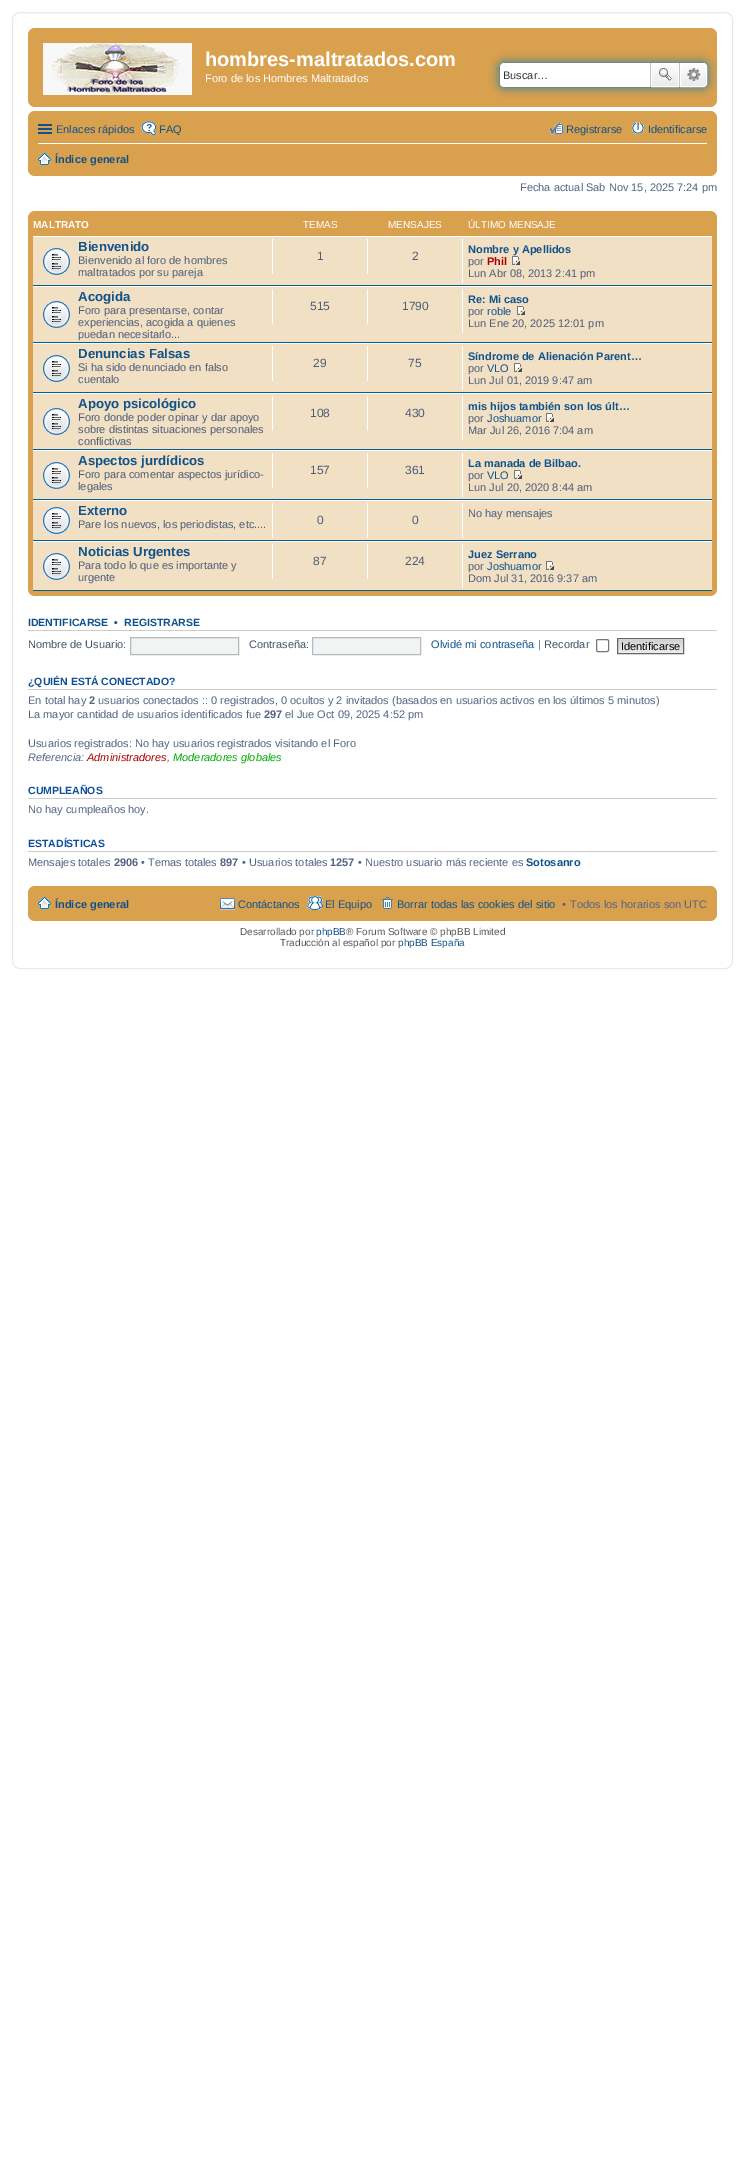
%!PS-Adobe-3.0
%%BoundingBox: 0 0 745 2174
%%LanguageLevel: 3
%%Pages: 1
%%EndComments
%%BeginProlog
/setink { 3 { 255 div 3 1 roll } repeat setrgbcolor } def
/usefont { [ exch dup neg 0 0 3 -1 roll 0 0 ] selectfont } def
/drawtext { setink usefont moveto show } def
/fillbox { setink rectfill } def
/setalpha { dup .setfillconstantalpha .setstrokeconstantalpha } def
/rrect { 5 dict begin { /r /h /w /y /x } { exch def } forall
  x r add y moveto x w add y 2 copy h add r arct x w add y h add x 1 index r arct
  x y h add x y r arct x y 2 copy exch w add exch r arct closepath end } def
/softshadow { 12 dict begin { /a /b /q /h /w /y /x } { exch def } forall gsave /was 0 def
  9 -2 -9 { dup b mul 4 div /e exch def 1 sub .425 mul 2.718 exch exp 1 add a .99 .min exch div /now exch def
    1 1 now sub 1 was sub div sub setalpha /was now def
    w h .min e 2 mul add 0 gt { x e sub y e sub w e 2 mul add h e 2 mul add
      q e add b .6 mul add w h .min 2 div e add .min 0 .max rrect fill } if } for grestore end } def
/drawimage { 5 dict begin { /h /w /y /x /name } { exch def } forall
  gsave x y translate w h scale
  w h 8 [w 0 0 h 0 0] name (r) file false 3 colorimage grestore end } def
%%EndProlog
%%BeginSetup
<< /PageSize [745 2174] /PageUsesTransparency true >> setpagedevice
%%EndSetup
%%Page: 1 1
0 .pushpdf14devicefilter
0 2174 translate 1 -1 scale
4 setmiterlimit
0 0 745 2174 255 255 255 fillbox
230 233 237 setink
12.5 12.5 720 956 7.5 rrect stroke
(assets/img1.rgb) 28 28 689 79 drawimage
(assets/img2.rgb) 43 43 149 52 drawimage
(hombres-maltratados.com) 205 66 /LiberationSans-Bold 20 255 255 255 drawtext
(Foro de los Hombres Maltratados) 205 82 /LiberationSans-Regular 11 255 255 255 drawtext
0 117 176 setink
500 63 207 24 4 5 1 softshadow
255 255 255 setink
504 63 moveto 650 63 lineto 650 87 lineto 504 87 lineto 502 87 500 85 500 83 curveto 500 67 lineto 500 65 502 63 504 63 curveto closepath fill
(Buscar…) 503 79 /LiberationSans-Regular 11 51 51 51 drawtext
gsave 652 64 moveto 678 64 lineto 678 86 lineto 652 86 lineto closepath clip newpath
<< /ShadingType 2 /ColorSpace /DeviceRGB /Coords [665 63 665 87] /Extend [true true] /Function << /FunctionType 2 /Domain [0 1] /C0 [1 1 1] /C1 [0.914 0.914 0.914] /N 1 >> >> shfill grestore
255 255 255 setink
651.5 63.5 27 23 rectstroke
679 63 1 24 199 195 191 fillbox
650 63 1 24 199 195 191 fillbox
(assets/img3.rgb) 659 68 13 13 drawimage
gsave 680.5 63.5 moveto 703 63.5 lineto 705 63.5 706.5 65 706.5 67 curveto 706.5 83 lineto 706.5 85 705 86.5 703 86.5 curveto 680.5 86.5 lineto closepath clip newpath
<< /ShadingType 2 /ColorSpace /DeviceRGB /Coords [694 63 694 87] /Extend [true true] /Function << /FunctionType 2 /Domain [0 1] /C0 [1 1 1] /C1 [0.914 0.914 0.914] /N 1 >> >> shfill grestore
255 255 255 setink
680.5 63.5 moveto 703 63.5 lineto 705 63.5 706.5 65 706.5 67 curveto 706.5 83 lineto 706.5 85 705 86.5 703 86.5 curveto 680.5 86.5 lineto closepath stroke
(assets/img4.rgb) 687 68 14 13 drawimage
217 160 78 setink
28 111 689 65 7 rrect fill
38 124 14 2 16 82 137 fillbox
38 128 14 2 16 82 137 fillbox
38 132 14 2 16 82 137 fillbox
(Enlaces rápidos) 56 133 /LiberationSans-Regular 11 16 82 137 drawtext
(assets/img5.rgb) 141 121 16 14 drawimage
(FAQ) 159 133 /LiberationSans-Regular 11 16 82 137 drawtext
(assets/img6.rgb) 549 122 14 13 drawimage
(Registrarse) 566 133 /LiberationSans-Regular 11 16 82 137 drawtext
(assets/img7.rgb) 632 122 12 12 drawimage
(Identificarse) 648 133 /LiberationSans-Regular 11 16 82 137 drawtext
38 143 669 1 255 255 255 fillbox
(assets/img8.rgb) 38 153 13 12 drawimage
(Índice general) 55 163 /LiberationSans-Bold 11 16 82 137 drawtext
(Fecha actual Sab Nov 15, 2025 7:24 pm) 520 191 /LiberationSans-Regular 11 83 100 130 drawtext
217 160 78 setink
28 211 689 385 7 rrect fill
(assets/img9.rgb) 28 211 689 7 drawimage
(MALTRATO) 33 228 /LiberationSans-Bold 10 255 255 255 drawtext
(TEMAS) 303 228 /LiberationSans-Regular 10 255 255 255 drawtext
(MENSAJES) 388 228 /LiberationSans-Regular 10 255 255 255 drawtext
(ÚLTIMO MENSAJE) 468 228 /LiberationSans-Regular 10 255 255 255 drawtext
33 237 679 353 242 224 197 fillbox
33 236 679 1 255 255 255 fillbox
33 285 679 1 0 96 143 fillbox
(assets/img10.rgb) 43 248 27 27 drawimage
(Bienvenido) 78 251 /LiberationSans-Bold 13.25 16 82 137 drawtext
(Bienvenido al foro de hombres) 78 264 /LiberationSans-Regular 11 76 93 119 drawtext
(maltratados por su pareja) 78 276 /LiberationSans-Regular 11 76 93 119 drawtext
272 239 1 35 255 255 255 fillbox
(1) 317 260 /LiberationSans-Regular 12 76 93 119 drawtext
367 239 1 35 255 255 255 fillbox
(2) 412 260 /LiberationSans-Regular 12 76 93 119 drawtext
462 239 1 44 255 255 255 fillbox
(Nombre y Apellidos) 468 253 /LiberationSans-Bold 11 16 82 137 drawtext
(por) 468 265 /LiberationSans-Regular 11 76 93 119 drawtext
(Phil) 487 265 /LiberationSans-Bold 11 170 0 0 drawtext
(assets/img11.rgb) 512 256 8 9 drawimage
(Lun Abr 08, 2013 2:41 pm) 468 277 /LiberationSans-Regular 11 76 93 119 drawtext
33 286 679 1 255 255 255 fillbox
33 342 679 1 0 96 143 fillbox
(assets/img10.rgb) 43 301 27 27 drawimage
(Acogida) 78 301 /LiberationSans-Bold 13.25 16 82 137 drawtext
(Foro para presentarse, contar) 78 314 /LiberationSans-Regular 11 76 93 119 drawtext
(experiencias, acogida a quienes) 78 326 /LiberationSans-Regular 11 76 93 119 drawtext
(puedan necesitarlo...) 78 338 /LiberationSans-Regular 11 76 93 119 drawtext
272 289 1 35 255 255 255 fillbox
(515) 310 310 /LiberationSans-Regular 12 76 93 119 drawtext
367 289 1 35 255 255 255 fillbox
(1790) 402 310 /LiberationSans-Regular 12 76 93 119 drawtext
462 289 1 44 255 255 255 fillbox
(Re: Mi caso) 468 303 /LiberationSans-Bold 11 16 82 137 drawtext
(por) 468 315 /LiberationSans-Regular 11 76 93 119 drawtext
(roble) 487 315 /LiberationSans-Regular 11 16 82 137 drawtext
(assets/img11.rgb) 517 306 8 9 drawimage
(Lun Ene 20, 2025 12:01 pm) 468 327 /LiberationSans-Regular 11 76 93 119 drawtext
33 343 679 1 255 255 255 fillbox
33 392 679 1 0 96 143 fillbox
(assets/img10.rgb) 43 355 27 27 drawimage
(Denuncias Falsas) 78 358 /LiberationSans-Bold 13.25 16 82 137 drawtext
(Si ha sido denunciado en falso) 78 371 /LiberationSans-Regular 11 76 93 119 drawtext
(cuentalo) 78 383 /LiberationSans-Regular 11 76 93 119 drawtext
272 346 1 35 255 255 255 fillbox
(29) 313 367 /LiberationSans-Regular 12 76 93 119 drawtext
367 346 1 35 255 255 255 fillbox
(75) 408 367 /LiberationSans-Regular 12 76 93 119 drawtext
462 346 1 44 255 255 255 fillbox
(Síndrome de Alienación Parent…) 468 360 /LiberationSans-Bold 11 16 82 137 drawtext
(por) 468 372 /LiberationSans-Regular 11 76 93 119 drawtext
(VLO) 487 372 /LiberationSans-Regular 11 16 82 137 drawtext
(assets/img11.rgb) 514 363 8 9 drawimage
(Lun Jul 01, 2019 9:47 am) 468 384 /LiberationSans-Regular 11 76 93 119 drawtext
33 393 679 1 255 255 255 fillbox
33 449 679 1 0 96 143 fillbox
(assets/img10.rgb) 43 408 27 27 drawimage
(Apoyo psicológico) 78 408 /LiberationSans-Bold 13.25 16 82 137 drawtext
(Foro donde poder opinar y dar apoyo) 78 421 /LiberationSans-Regular 11 76 93 119 drawtext
(sobre distintas situaciones personales) 78 433 /LiberationSans-Regular 11 76 93 119 drawtext
(conflictivas) 78 445 /LiberationSans-Regular 11 76 93 119 drawtext
272 396 1 35 255 255 255 fillbox
(108) 310 417 /LiberationSans-Regular 12 76 93 119 drawtext
367 396 1 35 255 255 255 fillbox
(430) 405 417 /LiberationSans-Regular 12 76 93 119 drawtext
462 396 1 44 255 255 255 fillbox
(mis hijos también son los últ…) 468 410 /LiberationSans-Bold 11 16 82 137 drawtext
(por) 468 422 /LiberationSans-Regular 11 76 93 119 drawtext
(Joshuamor) 487 422 /LiberationSans-Regular 11 16 82 137 drawtext
(assets/img11.rgb) 546 413 8 9 drawimage
(Mar Jul 26, 2016 7:04 am) 468 434 /LiberationSans-Regular 11 76 93 119 drawtext
33 450 679 1 255 255 255 fillbox
33 499 679 1 0 96 143 fillbox
(assets/img10.rgb) 43 462 27 27 drawimage
(Aspectos jurdídicos) 78 465 /LiberationSans-Bold 13.25 16 82 137 drawtext
(Foro para comentar aspectos jurídico-) 78 478 /LiberationSans-Regular 11 76 93 119 drawtext
(legales) 78 490 /LiberationSans-Regular 11 76 93 119 drawtext
272 453 1 35 255 255 255 fillbox
(157) 310 474 /LiberationSans-Regular 12 76 93 119 drawtext
367 453 1 35 255 255 255 fillbox
(361) 405 474 /LiberationSans-Regular 12 76 93 119 drawtext
462 453 1 44 255 255 255 fillbox
(La manada de Bilbao.) 468 467 /LiberationSans-Bold 11 16 82 137 drawtext
(por) 468 479 /LiberationSans-Regular 11 76 93 119 drawtext
(VLO) 487 479 /LiberationSans-Regular 11 16 82 137 drawtext
(assets/img11.rgb) 514 470 8 9 drawimage
(Lun Jul 20, 2020 8:44 am) 468 491 /LiberationSans-Regular 11 76 93 119 drawtext
33 500 679 1 255 255 255 fillbox
33 540 679 1 0 96 143 fillbox
(assets/img10.rgb) 43 507 27 27 drawimage
(Externo) 78 515 /LiberationSans-Bold 13.25 16 82 137 drawtext
(Pare los nuevos, los periodistas, etc....) 78 528 /LiberationSans-Regular 11 76 93 119 drawtext
272 503 1 35 255 255 255 fillbox
(0) 317 524 /LiberationSans-Regular 12 76 93 119 drawtext
367 503 1 35 255 255 255 fillbox
(0) 412 524 /LiberationSans-Regular 12 76 93 119 drawtext
462 503 1 35 255 255 255 fillbox
(No hay mensajes) 468 517 /LiberationSans-Regular 11 76 93 119 drawtext
33 541 679 1 255 255 255 fillbox
33 590 679 1 0 96 143 fillbox
(assets/img10.rgb) 43 553 27 27 drawimage
(Noticias Urgentes) 78 556 /LiberationSans-Bold 13.25 16 82 137 drawtext
(Para todo lo que es importante y) 78 569 /LiberationSans-Regular 11 76 93 119 drawtext
(urgente) 78 581 /LiberationSans-Regular 11 76 93 119 drawtext
272 544 1 35 255 255 255 fillbox
(87) 313 565 /LiberationSans-Regular 12 76 93 119 drawtext
367 544 1 35 255 255 255 fillbox
(224) 405 565 /LiberationSans-Regular 12 76 93 119 drawtext
462 544 1 44 255 255 255 fillbox
(Juez Serrano) 468 558 /LiberationSans-Bold 11 16 82 137 drawtext
(por) 468 570 /LiberationSans-Regular 11 76 93 119 drawtext
(Joshuamor) 487 570 /LiberationSans-Regular 11 16 82 137 drawtext
(assets/img11.rgb) 546 561 8 9 drawimage
(Dom Jul 31, 2016 9:37 am) 468 582 /LiberationSans-Regular 11 76 93 119 drawtext
28 630 689 1 204 204 204 fillbox
(IDENTIFICARSE) 28 626 /LiberationSans-Bold 10.5 16 82 137 drawtext
(•) 114 626 /LiberationSans-Bold 10.5 17 80 152 drawtext
(REGISTRARSE) 124 626 /LiberationSans-Bold 10.5 16 82 137 drawtext
(Nombre de Usuario:) 28 648 /LiberationSans-Regular 11 66 80 103 drawtext
242 243 243 setink
130.5 637.5 moveto 238.5 637.5 lineto 238.5 654.5 lineto 130.5 654.5 lineto closepath gsave fill grestore
180 186 192 setink
stroke
(Contraseña:) 249 648 /LiberationSans-Regular 11 66 80 103 drawtext
242 243 243 setink
312.5 637.5 moveto 420.5 637.5 lineto 420.5 654.5 lineto 312.5 654.5 lineto closepath gsave fill grestore
180 186 192 setink
stroke
(Olvidé mi contraseña) 431 648 /LiberationSans-Regular 11 16 82 137 drawtext
(|) 538 648 /LiberationSans-Regular 11 83 100 130 drawtext
(Recordar) 544 648 /LiberationSans-Regular 11 66 80 103 drawtext
118 118 118 setink
596.5 639.5 12 12 1.5 rrect stroke
(assets/img12.rgb) 618 639 65 14 drawimage
102 102 102 setink
617.5 638.5 66 15 rectstroke
(Identificarse) 621 650 /LiberationSans-Regular 11 0 0 0 drawtext
28 689 689 1 204 204 204 fillbox
(¿QUIÉN ESTÁ CONECTADO?) 28 685 /LiberationSans-Bold 10.5 17 80 152 drawtext
(En total hay) 28 704 /LiberationSans-Regular 11 83 100 130 drawtext
(2) 89 704 /LiberationSans-Bold 11 83 100 130 drawtext
(usuarios conectados :: 0 registrados, 0 ocultos y 2 invitados \(basados en usuarios activos en los últimos 5 minutos\)) 98 704 /LiberationSans-Regular 11 83 100 130 drawtext
(La mayor cantidad de usuarios identificados fue) 28 718 /LiberationSans-Regular 11 83 100 130 drawtext
(297) 264 718 /LiberationSans-Bold 11 83 100 130 drawtext
(el Jue Oct 09, 2025 4:52 pm) 285 718 /LiberationSans-Regular 11 83 100 130 drawtext
(Usuarios registrados: No hay usuarios registrados visitando el Foro) 28 747 /LiberationSans-Regular 11 83 100 130 drawtext
(Referencia:) 28 761 /LiberationSans-Italic 11 83 100 130 drawtext
(Administradores) 87 761 /LiberationSans-Italic 11 170 0 0 drawtext
(,) 167 761 /LiberationSans-Italic 11 83 100 130 drawtext
(Moderadores globales) 173 761 /LiberationSans-Italic 11 0 170 0 drawtext
28 798 689 1 204 204 204 fillbox
(CUMPLEAÑOS) 28 794 /LiberationSans-Bold 10.5 17 80 152 drawtext
(No hay cumpleaños hoy.) 28 813 /LiberationSans-Regular 11 83 100 130 drawtext
28 851 689 1 204 204 204 fillbox
(ESTADÍSTICAS) 28 847 /LiberationSans-Bold 10.5 17 80 152 drawtext
(Mensajes totales) 28 866 /LiberationSans-Regular 11 83 100 130 drawtext
(2906) 114 866 /LiberationSans-Bold 11 83 100 130 drawtext
(• Temas totales) 141 866 /LiberationSans-Regular 11 83 100 130 drawtext
(897) 220 866 /LiberationSans-Bold 11 83 100 130 drawtext
(• Usuarios totales) 242 866 /LiberationSans-Regular 11 83 100 130 drawtext
(1257) 330 866 /LiberationSans-Bold 11 83 100 130 drawtext
(• Nuestro usuario más reciente es) 358 866 /LiberationSans-Regular 11 83 100 130 drawtext
(Sotosanro) 526 866 /LiberationSans-Bold 11 16 82 137 drawtext
217 160 78 setink
28 886 689 35 7 rrect fill
(assets/img8.rgb) 38 897 13 12 drawimage
(Índice general) 55 908 /LiberationSans-Bold 11 16 82 137 drawtext
(assets/img13.rgb) 220 898 15 12 drawimage
(Contáctanos) 238 908 /LiberationSans-Regular 11 16 82 137 drawtext
(assets/img14.rgb) 307 896 16 14 drawimage
(El Equipo) 325 908 /LiberationSans-Regular 11 16 82 137 drawtext
(assets/img15.rgb) 382 897 11 12 drawimage
(Borrar todas las cookies del sitio) 397 908 /LiberationSans-Regular 11 16 82 137 drawtext
(•) 562 908 /LiberationSans-Regular 11 83 100 130 drawtext
(Todos los horarios son UTC) 570 908 /LiberationSans-Regular 11 83 100 130 drawtext
(Desarrollado por) 240 935 /LiberationSans-Regular 10 85 85 85 drawtext
(phpBB) 316 935 /LiberationSans-Regular 10 16 82 137 drawtext
(® Forum Software © phpBB Limited) 346 935 /LiberationSans-Regular 10 85 85 85 drawtext
(Traducción al español por) 280 946 /LiberationSans-Regular 10 85 85 85 drawtext
(phpBB España) 398 946 /LiberationSans-Regular 10 16 82 137 drawtext
.poppdf14devicefilter showpage
%%EOF
